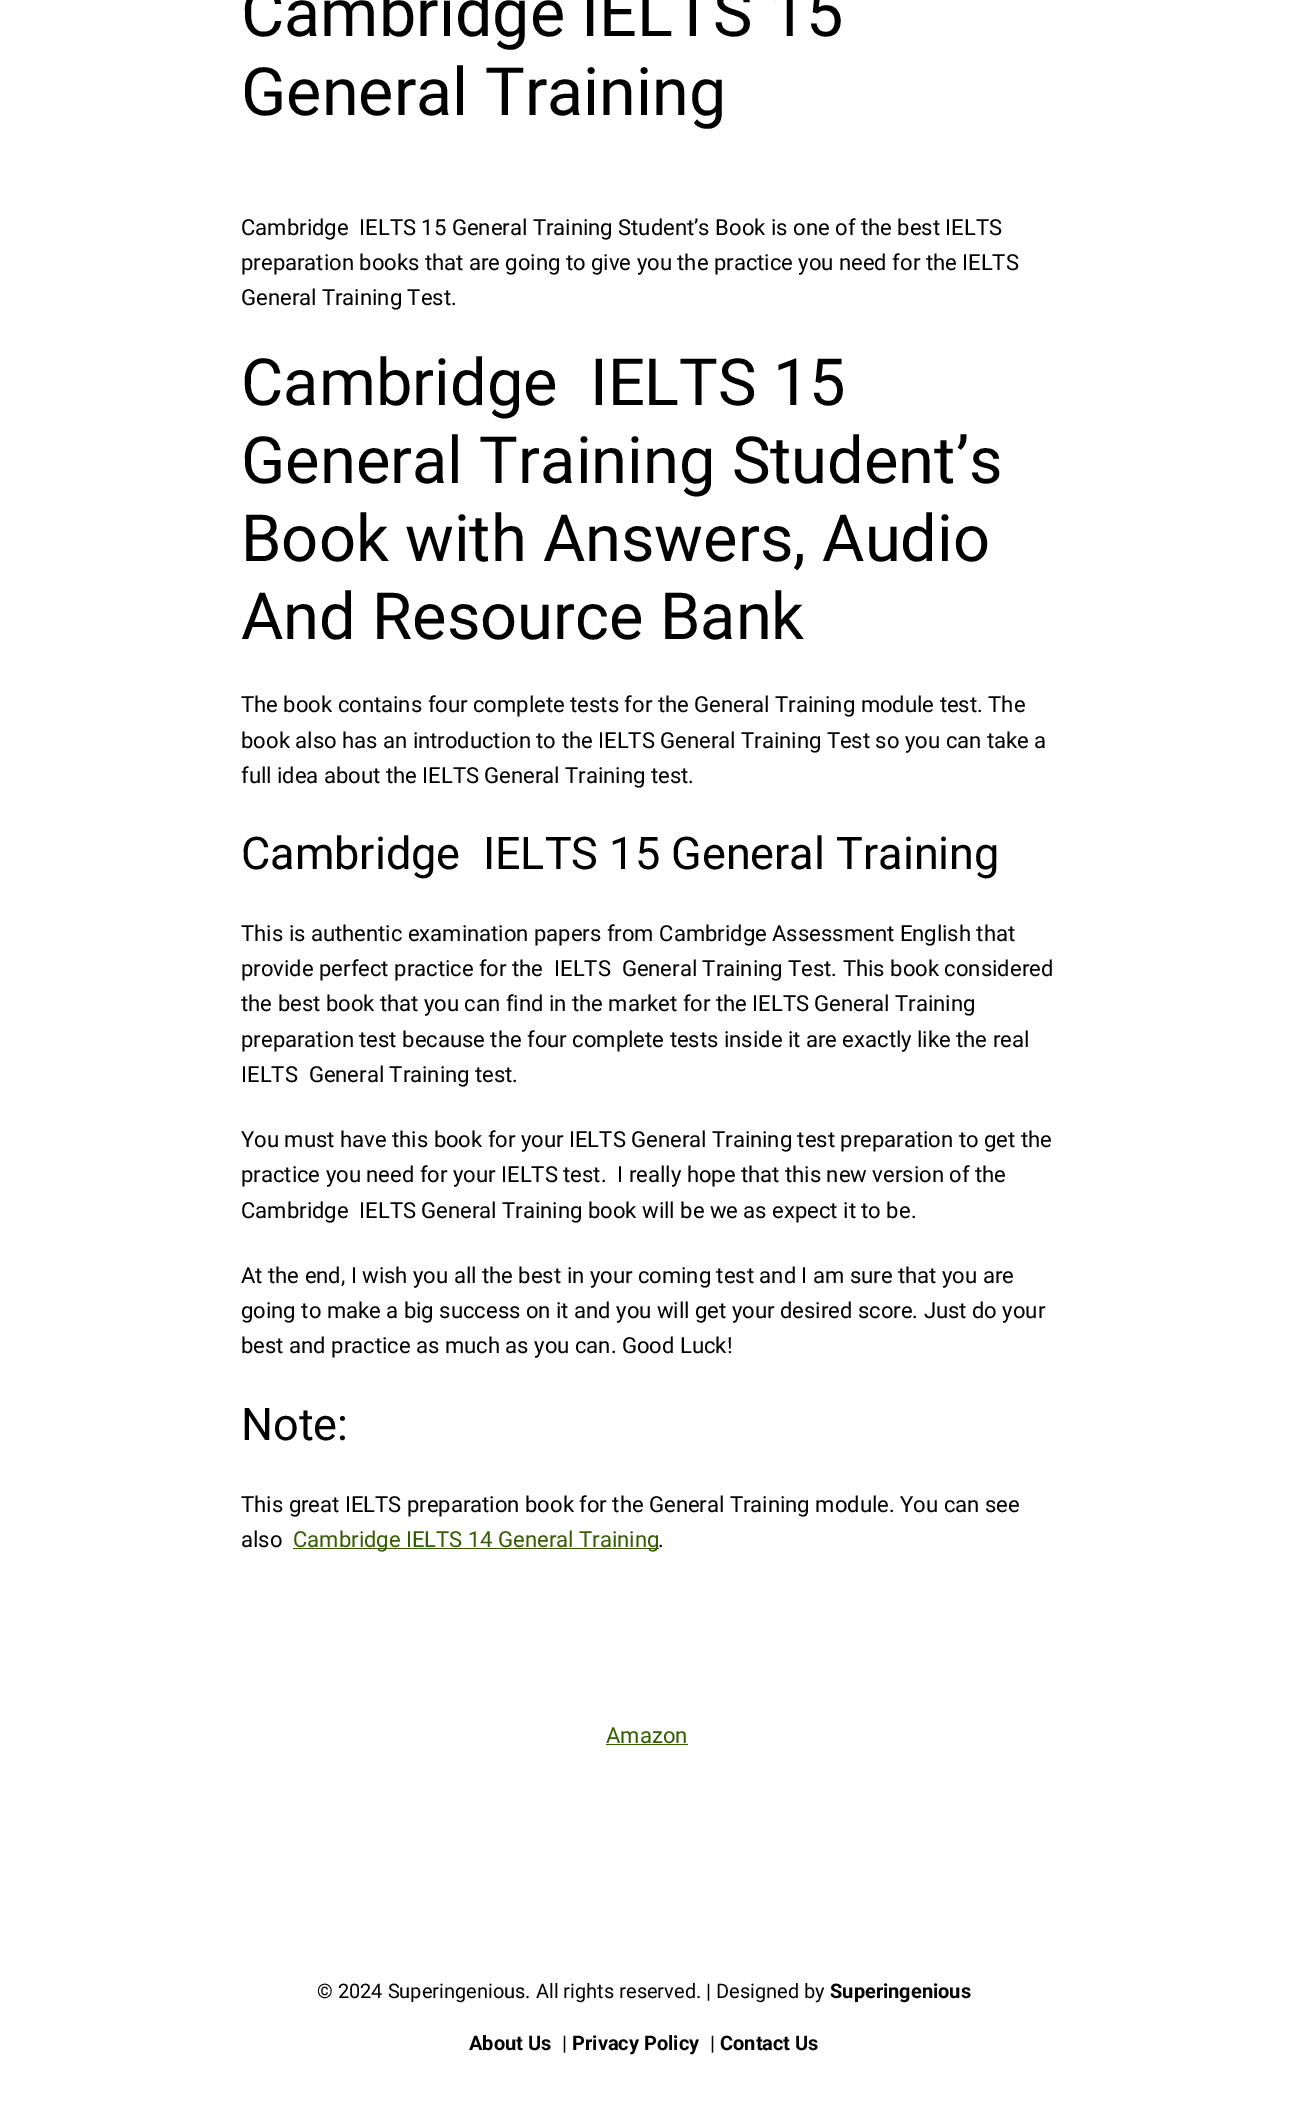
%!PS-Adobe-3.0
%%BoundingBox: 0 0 1293 2124
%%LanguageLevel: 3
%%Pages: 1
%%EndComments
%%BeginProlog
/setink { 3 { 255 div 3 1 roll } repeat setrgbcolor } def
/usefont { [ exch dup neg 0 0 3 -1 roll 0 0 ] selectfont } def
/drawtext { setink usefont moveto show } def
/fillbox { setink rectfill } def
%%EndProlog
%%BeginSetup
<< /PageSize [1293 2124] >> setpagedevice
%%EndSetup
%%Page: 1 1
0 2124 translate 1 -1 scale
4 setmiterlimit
0 0 1293 2124 255 255 255 fillbox
(Cambridge IELTS 15) 241 36 /Roboto-Regular 66.5 0 0 0 drawtext
(General Training) 241 115 /Roboto-Regular 66.5 0 0 0 drawtext
(Cambridge  IELTS 15 General Training Student’s Book is one of the best IELTS) 241 235 /Roboto-Regular 22.05 0 0 0 drawtext
(preparation books that are going to give you the practice you need for the IELTS) 241 270 /Roboto-Regular 22.05 0 0 0 drawtext
(General Training Test.) 241 305 /Roboto-Regular 22.05 0 0 0 drawtext
(Cambridge  IELTS 15) 241 405 /Roboto-Regular 65 0 0 0 drawtext
(General Training Student’s) 241 483 /Roboto-Regular 65 0 0 0 drawtext
(Book with Answers, Audio) 241 561 /Roboto-Regular 65 0 0 0 drawtext
(And Resource Bank) 241 639 /Roboto-Regular 65 0 0 0 drawtext
(The book contains four complete tests for the General Training module test. The) 241 712 /Roboto-Regular 22.05 0 0 0 drawtext
(book also has an introduction to the IELTS General Training Test so you can take a) 241 748 /Roboto-Regular 22.05 0 0 0 drawtext
(full idea about the IELTS General Training test.) 241 783 /Roboto-Regular 22.05 0 0 0 drawtext
(Cambridge  IELTS 15 General Training) 241 869 /Roboto-Regular 45 0 0 0 drawtext
(This is authentic examination papers from Cambridge Assessment English that) 241 941 /Roboto-Regular 22.05 0 0 0 drawtext
(provide perfect practice for the  IELTS  General Training Test. This book considered) 241 976 /Roboto-Regular 22.05 0 0 0 drawtext
(the best book that you can find in the market for the IELTS General Training) 241 1011 /Roboto-Regular 22.05 0 0 0 drawtext
(preparation test because the four complete tests inside it are exactly like the real) 241 1047 /Roboto-Regular 22.05 0 0 0 drawtext
(IELTS  General Training test.) 241 1082 /Roboto-Regular 22.05 0 0 0 drawtext
(You must have this book for your IELTS General Training test preparation to get the) 241 1147 /Roboto-Regular 22.05 0 0 0 drawtext
(practice you need for your IELTS test.  I really hope that this new version of the) 241 1182 /Roboto-Regular 22.05 0 0 0 drawtext
(Cambridge  IELTS General Training book will be we as expect it to be.) 241 1218 /Roboto-Regular 22.05 0 0 0 drawtext
(At the end, I wish you all the best in your coming test and I am sure that you are) 241 1283 /Roboto-Regular 22.05 0 0 0 drawtext
(going to make a big success on it and you will get your desired score. Just do your) 241 1318 /Roboto-Regular 22.05 0 0 0 drawtext
(best and practice as much as you can. Good Luck!) 241 1353 /Roboto-Regular 22.05 0 0 0 drawtext
(Note:) 241 1440 /Roboto-Regular 45 0 0 0 drawtext
(This great IELTS preparation book for the General Training module. You can see) 241 1512 /Roboto-Regular 22.05 0 0 0 drawtext
(also) 241 1547 /Roboto-Regular 22.05 0 0 0 drawtext
293 1548 366 1 52 92 0 fillbox
(Cambridge IELTS 14 General Training) 293 1547 /Roboto-Regular 22.05 52 92 0 drawtext
(.) 658 1547 /Roboto-Regular 22.05 0 0 0 drawtext
(Amazon) 606 1743 /Roboto-Regular 22.05 52 92 0 drawtext
606 1744 82 1 52 92 0 fillbox
(© 2024 Superingenious. All rights reserved. | Designed by) 317 1998 /Roboto-Regular 20 0 0 0 drawtext
(Superingenious) 830 1998 /Roboto-Bold 20 0 0 0 drawtext
(About Us) 469 2050 /Roboto-Bold 20 0 0 0 drawtext
(|) 562 2050 /Roboto-Regular 20 0 0 0 drawtext
(Privacy Policy) 572 2050 /Roboto-Bold 20 0 0 0 drawtext
(|) 710 2050 /Roboto-Regular 20 0 0 0 drawtext
(Contact Us) 720 2050 /Roboto-Bold 20 0 0 0 drawtext
showpage
%%EOF
